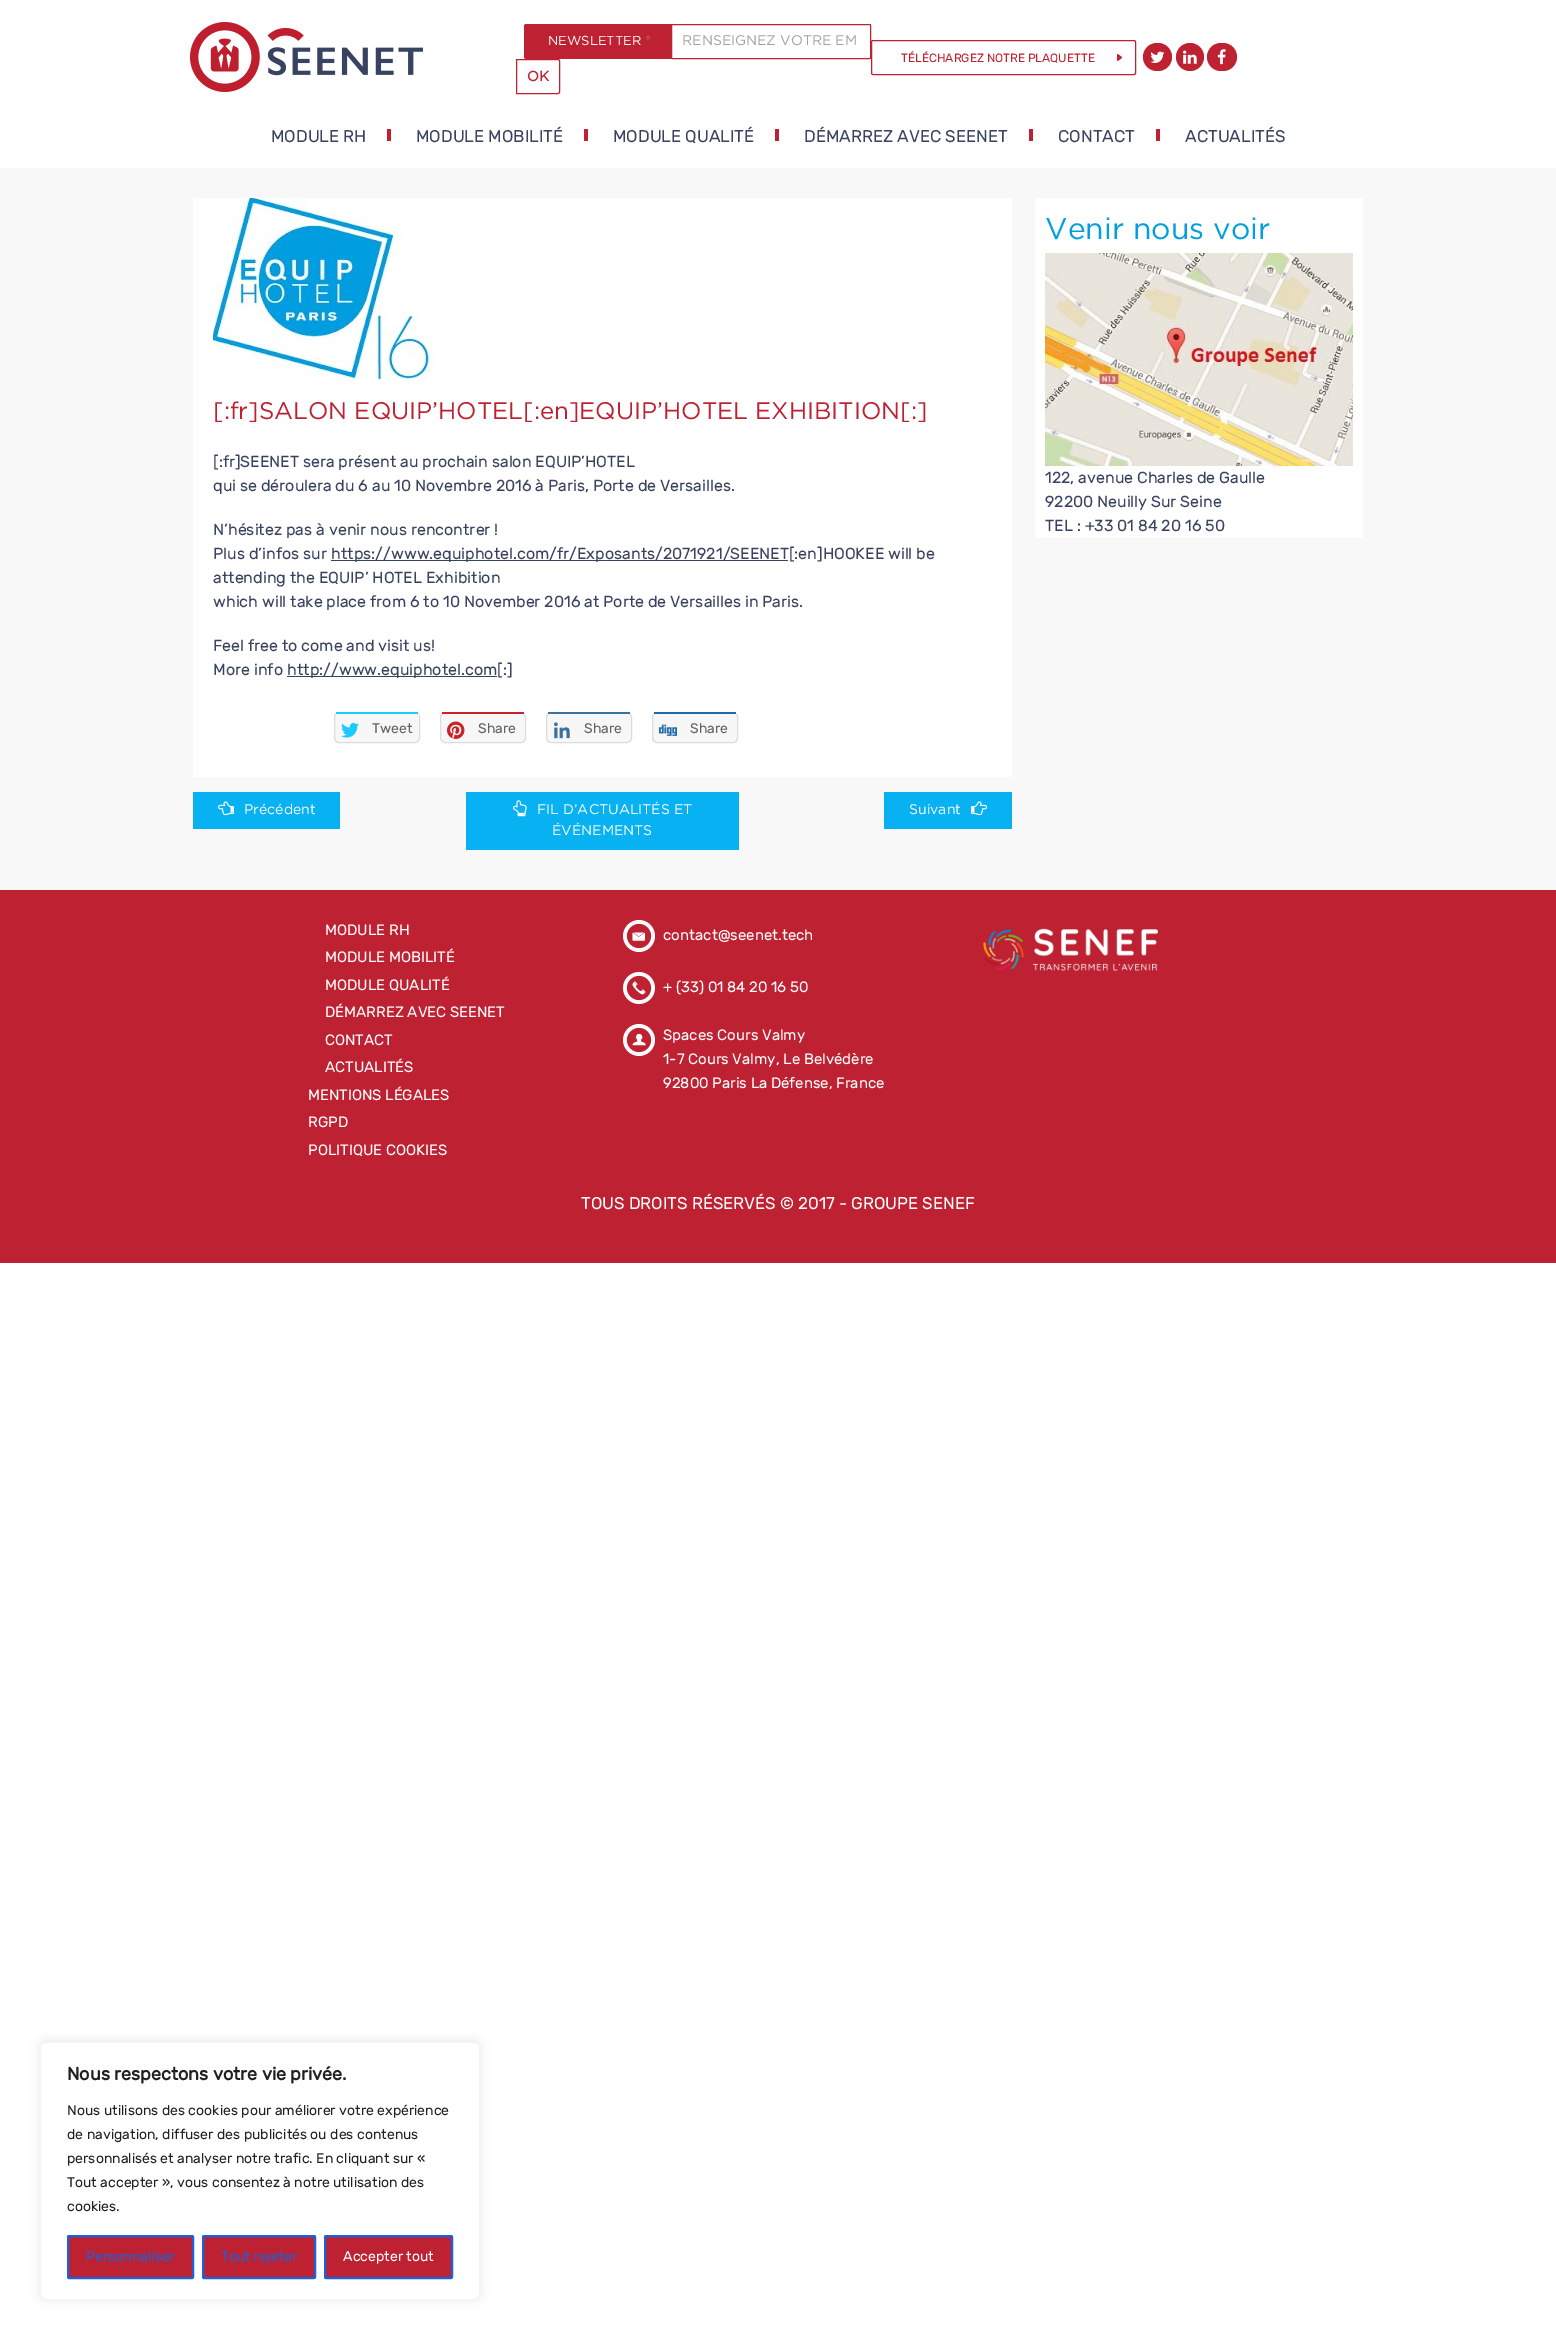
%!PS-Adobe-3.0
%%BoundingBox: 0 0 1556 2340
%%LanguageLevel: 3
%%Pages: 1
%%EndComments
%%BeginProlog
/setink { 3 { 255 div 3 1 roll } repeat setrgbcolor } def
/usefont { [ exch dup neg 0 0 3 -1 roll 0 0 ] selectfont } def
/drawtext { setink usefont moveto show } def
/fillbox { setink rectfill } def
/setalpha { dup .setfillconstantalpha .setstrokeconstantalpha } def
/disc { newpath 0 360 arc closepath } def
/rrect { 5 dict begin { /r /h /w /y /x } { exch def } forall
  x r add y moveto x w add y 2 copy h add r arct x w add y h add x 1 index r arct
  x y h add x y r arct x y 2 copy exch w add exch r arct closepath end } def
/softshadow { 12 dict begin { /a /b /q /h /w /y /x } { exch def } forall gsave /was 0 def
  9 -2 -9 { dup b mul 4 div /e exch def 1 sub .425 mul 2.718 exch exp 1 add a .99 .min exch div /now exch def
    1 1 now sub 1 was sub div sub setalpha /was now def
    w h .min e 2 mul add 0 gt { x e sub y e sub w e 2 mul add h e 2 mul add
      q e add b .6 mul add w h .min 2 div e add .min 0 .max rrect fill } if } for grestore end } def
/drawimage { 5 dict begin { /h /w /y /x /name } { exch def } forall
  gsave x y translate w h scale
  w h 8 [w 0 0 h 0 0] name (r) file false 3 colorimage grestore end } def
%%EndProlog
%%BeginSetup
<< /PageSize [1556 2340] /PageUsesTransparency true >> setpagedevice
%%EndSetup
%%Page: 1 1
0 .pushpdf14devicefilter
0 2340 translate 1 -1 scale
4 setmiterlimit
0 0 1556 2340 255 255 255 fillbox
(assets/img1.rgb) 190 22 233 70 drawimage
189 33 50 setink
526 24 moveto 674 24 lineto 674 59 lineto 526 59 lineto 525 59 524 58 524 57 curveto 524 26 lineto 524 25 525 24 526 24 curveto closepath fill
(NEWSLETTER) 548 45 /Gotham-Regular 13 255 255 255 drawtext
(*) 645 45 /Rubik-Bold 13 185 74 72 drawtext
255 255 255 setink
671.5 24.5 199 34 0.5 rrect gsave fill grestore
189 33 50 setink
stroke
(RENSEIGNEZ VOTRE EM) 682 45 /Gotham-Regular 14 161 161 161 drawtext
189 33 50 setink
516.5 59.5 moveto 558 59.5 lineto 559 59.5 559.5 60 559.5 61 curveto 559.5 92 lineto 559.5 93 559 93.5 558 93.5 curveto 516.5 93.5 lineto closepath stroke
(OK) 527 81 /Gotham-Bold 14 189 33 50 drawtext
(assets/img2.rgb) 1117 54 5 7 drawimage
871.5 40.5 264 34 1.5 rrect stroke
(TÉLÉCHARGEZ NOTRE PLAQUETTE) 901 62 /Rubik-Regular 12 189 33 50 drawtext
1143 43 29 28 14 rrect fill
(assets/img3.rgb) 1150 51 15 12 drawimage
1190 57 14 disc fill
(assets/img4.rgb) 1183 50 14 14 drawimage
1207 43 30 28 14 rrect fill
(assets/img5.rgb) 1217 49 9 16 drawimage
387 129 4 12 190 33 50 fillbox
(MODULE RH) 271 142 /Rubik-Regular 17 56 67 96 drawtext
584 129 4 12 190 33 50 fillbox
(MODULE MOBILITÉ) 416 142 /Rubik-Regular 17 56 67 96 drawtext
775 129 4 12 190 33 50 fillbox
(MODULE QUALITÉ) 613 142 /Rubik-Regular 17 56 67 96 drawtext
1029 129 4 12 190 33 50 fillbox
(DÉMARREZ AVEC SEENET) 804 142 /Rubik-Regular 17 56 67 96 drawtext
1156 129 4 12 190 33 50 fillbox
(CONTACT) 1058 142 /Rubik-Regular 17 56 67 96 drawtext
(ACTUALITÉS) 1185 142 /Rubik-Regular 17 56 67 96 drawtext
0 168 1556 722 248 248 248 fillbox
193 198 819 579 255 255 255 fillbox
(assets/img6.rgb) 213 198 222 181 drawimage
([:fr]SALON EQUIP’HOTEL[:en]EQUIP’HOTEL EXHIBITION[:]) 213 419 /Gotham-Regular 24 189 33 50 drawtext
([:fr]SEENET sera présent au prochain salon EQUIP’HOTEL) 213 467 /Rubik-Regular 16 56 67 96 drawtext
(qui se déroulera du 6 au 10 Novembre 2016 à Paris, Porte de Versailles.) 213 491 /Rubik-Regular 16 56 67 96 drawtext
(N’hésitez pas à venir nous rencontrer !) 213 535 /Rubik-Regular 16 56 67 96 drawtext
(Plus d’infos sur) 213 559 /Rubik-Regular 16 56 67 96 drawtext
331 560 457 1 56 67 96 fillbox
(https://www.equiphotel.com/fr/Exposants/2071921/SEENET[:en]HOOKEE will be) 331 559 /Rubik-Regular 16 56 67 96 drawtext
(attending the EQUIP’ HOTEL Exhibition) 213 583 /Rubik-Regular 16 56 67 96 drawtext
(which will take place from 6 to 10 November 2016 at Porte de Versailles in Paris.) 213 607 /Rubik-Regular 16 56 67 96 drawtext
(Feel free to come and visit us!) 213 651 /Rubik-Regular 16 56 67 96 drawtext
(More info) 213 675 /Rubik-Regular 16 56 67 96 drawtext
287 676 210 1 56 67 96 fillbox
(http://www.equiphotel.com[:]) 287 675 /Rubik-Regular 16 56 67 96 drawtext
247 247 247 setink
334.5 712.5 85 30 4.5 rrect gsave fill grestore
220 220 220 setink
stroke
336 712 82 2 29 202 255 fillbox
(assets/img7.rgb) 341 722 18 16 drawimage
(Tweet) 372 733 /Rubik-Regular 14 99 99 99 drawtext
247 247 247 setink
440.5 712.5 85 30 4.5 rrect gsave fill grestore
220 220 220 setink
stroke
442 712 82 2 201 34 40 fillbox
(assets/img8.rgb) 447 721 18 18 drawimage
(Share) 478 733 /Rubik-Regular 14 99 99 99 drawtext
247 247 247 setink
546.5 712.5 85 30 4.5 rrect gsave fill grestore
220 220 220 setink
stroke
548 712 82 2 63 114 155 fillbox
(assets/img9.rgb) 554 722 16 17 drawimage
(Share) 584 733 /Rubik-Regular 14 99 99 99 drawtext
247 247 247 setink
652.5 712.5 85 30 4.5 rrect gsave fill grestore
220 220 220 setink
stroke
654 712 82 2 33 105 168 fillbox
(assets/img10.rgb) 659 724 18 12 drawimage
(Share) 690 733 /Rubik-Regular 14 99 99 99 drawtext
193 792 147 37 7 177 242 fillbox
(assets/img11.rgb) 218 801 16 15 drawimage
(Précédent) 244 814 /Gotham-Regular 14 255 255 255 drawtext
466 792 273 58 7 177 242 fillbox
(assets/img12.rgb) 513 800 14 17 drawimage
(FIL D’ACTUALITÉS ET) 537 814 /Gotham-Regular 14 255 255 255 drawtext
(ÉVÉNEMENTS) 552 835 /Gotham-Regular 14 255 255 255 drawtext
884 792 128 37 7 177 242 fillbox
(Suivant) 909 814 /Gotham-Regular 14 255 255 255 drawtext
(assets/img13.rgb) 971 801 16 15 drawimage
1035 198 328 340 255 255 255 fillbox
(Venir nous voir) 1045 239 /Gotham-Regular 30 0 160 224 drawtext
(assets/img14.rgb) 1045 253 308 213 drawimage
(122, avenue Charles de Gaulle) 1045 483 /Rubik-Regular 16 56 67 96 drawtext
(92200 Neuilly Sur Seine) 1045 507 /Rubik-Regular 16 56 67 96 drawtext
(TEL : +33 01 84 20 16 50) 1045 531 /Rubik-Regular 16 56 67 96 drawtext
0 890 1556 373 189 33 50 fillbox
(MODULE RH) 325 935 /Rubik-Regular 15 255 255 255 drawtext
(MODULE MOBILITÉ) 325 962 /Rubik-Regular 15 255 255 255 drawtext
(MODULE QUALITÉ) 325 990 /Rubik-Regular 15 255 255 255 drawtext
(DÉMARREZ AVEC SEENET) 325 1017 /Rubik-Regular 15 255 255 255 drawtext
(CONTACT) 325 1045 /Rubik-Regular 15 255 255 255 drawtext
(ACTUALITÉS) 325 1072 /Rubik-Regular 15 255 255 255 drawtext
(MENTIONS LÉGALES) 308 1100 /Rubik-Regular 15 255 255 255 drawtext
(RGPD) 308 1127 /Rubik-Regular 15 255 255 255 drawtext
(POLITIQUE COOKIES) 308 1155 /Rubik-Regular 15 255 255 255 drawtext
(assets/img15.rgb) 623 920 32 32 drawimage
(contact@seenet.tech) 663 940 /Rubik-Regular 15 255 255 255 drawtext
(assets/img16.rgb) 623 972 32 32 drawimage
(+ \(33\) 01 84 20 16 50) 663 992 /Rubik-Regular 15 255 255 255 drawtext
(assets/img17.rgb) 623 1024 32 32 drawimage
(Spaces Cours Valmy) 663 1040 /Rubik-Regular 15 255 255 255 drawtext
(1-7 Cours Valmy, Le Belvédère) 663 1064 /Rubik-Regular 15 255 255 255 drawtext
(92800 Paris La Défense, France) 663 1088 /Rubik-Regular 15 255 255 255 drawtext
(assets/img18.rgb) 983 928 175 43 drawimage
(TOUS DROITS RÉSERVÉS © 2017 - GROUPE SENEF) 581 1209 /Rubik-Regular 17 255 255 255 drawtext
172 171 171 setink
40 2041 440 258 6 5 0.3 softshadow
255 255 255 setink
40.5 2042.5 439 257 5.5 rrect gsave fill grestore
244 244 244 setink
stroke
(Nous respectons votre vie privée.) 67 2080 /Rubik-Bold 18 33 33 33 drawtext
(Nous utilisons des cookies pour améliorer votre expérience) 67 2115 /Rubik-Regular 14 33 33 33 drawtext
(de navigation, diffuser des publicités ou des contenus) 67 2139 /Rubik-Regular 14 33 33 33 drawtext
(personnalisés et analyser notre trafic. En cliquant sur «) 67 2163 /Rubik-Regular 14 33 33 33 drawtext
(Tout accepter », vous consentez à notre utilisation des) 67 2187 /Rubik-Regular 14 33 33 33 drawtext
(cookies.) 67 2211 /Rubik-Regular 14 33 33 33 drawtext
189 33 50 setink
68 2236 125 42 1 rrect gsave fill grestore
24 99 220 setink
2 setlinewidth
stroke
(Personnaliser) 86 2261 /Rubik-Regular 14 24 99 220 drawtext
189 33 50 setink
203 2236 112 42 1 rrect gsave fill grestore
24 99 220 setink
stroke
(Tout rejeter) 221 2261 /Rubik-Regular 14 24 99 220 drawtext
189 33 50 setink
325 2236 127 42 1 rrect gsave fill grestore
24 99 220 setink
stroke
(Accepter tout) 343 2261 /Rubik-Regular 14 255 255 255 drawtext
.poppdf14devicefilter showpage
%%EOF
